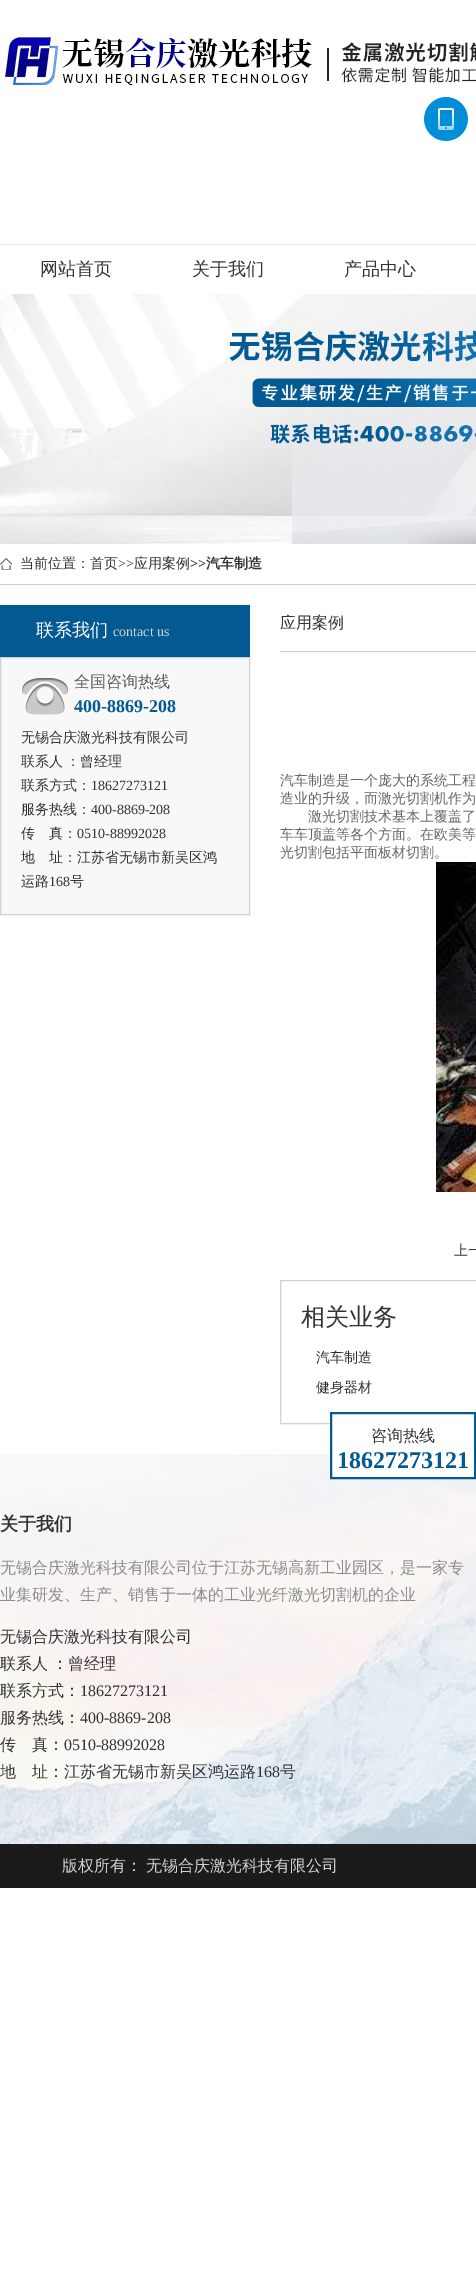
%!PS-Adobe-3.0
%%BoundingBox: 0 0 476 2278
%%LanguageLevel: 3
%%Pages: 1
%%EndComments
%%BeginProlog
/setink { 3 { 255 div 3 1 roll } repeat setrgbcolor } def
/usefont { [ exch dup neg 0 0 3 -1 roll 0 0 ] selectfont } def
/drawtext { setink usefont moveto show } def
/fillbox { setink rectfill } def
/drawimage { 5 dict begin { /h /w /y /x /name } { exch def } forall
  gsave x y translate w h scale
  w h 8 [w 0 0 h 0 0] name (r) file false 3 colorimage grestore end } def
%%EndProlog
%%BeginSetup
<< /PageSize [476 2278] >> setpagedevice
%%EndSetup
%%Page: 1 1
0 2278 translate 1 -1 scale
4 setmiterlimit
0 0 476 2278 255 255 255 fillbox
(assets/img1.rgb) 5 35 471 51 drawimage
(assets/img2.rgb) 424 97 44 44 drawimage
0 244 476 1 229 229 229 fillbox
(网站首页) 40 275 /WenQuanYiZenHei-Medium 18 51 51 51 drawtext
(关于我们) 192 275 /WenQuanYiZenHei-Medium 18 51 51 51 drawtext
(产品中心) 344 275 /WenQuanYiZenHei-Medium 18 51 51 51 drawtext
(assets/img3.rgb) 0 294 476 250 drawimage
0 584 476 1 204 204 204 fillbox
(assets/img4.rgb) 0 558 12 12 drawimage
(当前位置：) 20 568 /WenQuanYiZenHei-Medium 14 51 51 51 drawtext
(首页) 90 568 /WenQuanYiZenHei-Medium 14 44 44 44 drawtext
(>>) 118 568 /LiberationSerif-Regular 14 51 51 51 drawtext
(应用案例) 134 568 /WenQuanYiZenHei-Medium 14 44 44 44 drawtext
(>>) 190 568 /LiberationSerif-Bold 14 51 51 51 drawtext
(汽车制造) 206 568 /WenQuanYiZenHei-Bold 14 51 51 51 drawtext
0 605 250 52 3 90 146 fillbox
(联系我们) 36 636 /WenQuanYiZenHei-Medium 18 255 255 255 drawtext
(contact us) 113 636 /LiberationSerif-Regular 14 209 209 209 drawtext
1 658 248 256 248 248 248 fillbox
(assets/img5.rgb) 21 678 48 37 drawimage
209 209 209 setink
0.5 657.5 249 257 rectstroke
(全国咨询热线) 74 687 /WenQuanYiZenHei-Medium 16 91 91 91 drawtext
(400-8869-208) 74 712 /LiberationSerif-Bold 18 3 90 146 drawtext
(无锡合庆激光科技有限公司) 21 742 /WenQuanYiZenHei-Medium 14 51 51 51 drawtext
21 766 moveto -1 0 32 (联系人 ：曾经理) widthshow
(联系方式：) 21 790 /WenQuanYiZenHei-Medium 14 51 51 51 drawtext
(18627273121) 91 790 /LiberationSerif-Regular 14 51 51 51 drawtext
(服务热线：) 21 814 /WenQuanYiZenHei-Medium 14 51 51 51 drawtext
(400-8869-208) 91 814 /LiberationSerif-Regular 14 51 51 51 drawtext
(传) 21 838 /WenQuanYiZenHei-Medium 14 51 51 51 drawtext
(真：) 49 838 /WenQuanYiZenHei-Medium 14 51 51 51 drawtext
(0510-88992028) 77 838 /LiberationSerif-Regular 14 51 51 51 drawtext
(地) 21 862 /WenQuanYiZenHei-Medium 14 51 51 51 drawtext
(址：江苏省无锡市新吴区鸿) 49 862 /WenQuanYiZenHei-Medium 14 51 51 51 drawtext
(运路) 21 886 /WenQuanYiZenHei-Medium 14 51 51 51 drawtext
(168) 49 886 /LiberationSerif-Regular 14 51 51 51 drawtext
(号) 70 886 /WenQuanYiZenHei-Medium 14 51 51 51 drawtext
280 651 196 1 204 204 204 fillbox
(应用案例) 280 628 /WenQuanYiZenHei-Medium 16 51 51 51 drawtext
(汽车制造是一个庞大的系统工程) 280 785 /WenQuanYiZenHei-Medium 14 102 102 102 drawtext
(造业的升级，而激光切割机作为) 280 803 /WenQuanYiZenHei-Medium 14 102 102 102 drawtext
(激光切割技术基本上覆盖了) 308 821 /WenQuanYiZenHei-Medium 14 102 102 102 drawtext
(车车顶盖等各个方面。在欧美等) 280 839 /WenQuanYiZenHei-Medium 14 102 102 102 drawtext
(光切割包括平面板材切割。) 280 857 /WenQuanYiZenHei-Medium 14 102 102 102 drawtext
(assets/img6.rgb) 436 862 40 330 drawimage
(上一) 454 1255 /WenQuanYiZenHei-Medium 14 51 51 51 drawtext
209 209 209 setink
280.5 1280.5 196 143 rectstroke
(相关业务) 301 1325 /WenQuanYiZenHei-Medium 24 51 51 51 drawtext
(汽车制造) 316 1362 /WenQuanYiZenHei-Medium 14 44 44 44 drawtext
(健身器材) 316 1392 /WenQuanYiZenHei-Medium 14 44 44 44 drawtext
(assets/img7.rgb) 0 1454 476 390 drawimage
332 1423 142 54 255 255 255 fillbox
3 90 146 setink
2 setlinewidth
331 1413 144 65 rectstroke
(咨询热线) 371 1441 /WenQuanYiZenHei-Medium 16 51 51 51 drawtext
(18627273121) 337 1468 /LiberationSerif-Bold 24 3 90 146 drawtext
(关于我们) 0 1530 /WenQuanYiZenHei-Bold 18 51 51 51 drawtext
(无锡合庆激光科技有限公司位于江苏无锡高新工业园区，是一家专) 0 1573 /WenQuanYiZenHei-Medium 16 140 140 140 drawtext
(业集研发、生产、销售于一体的工业光纤激光切割机的企业) 0 1600 /WenQuanYiZenHei-Medium 16 140 140 140 drawtext
(无锡合庆激光科技有限公司) 0 1642 /WenQuanYiZenHei-Medium 16 51 51 51 drawtext
0 1669 moveto -1 0 32 (联系人 ：曾经理) widthshow
(联系方式：) 0 1696 /WenQuanYiZenHei-Medium 16 51 51 51 drawtext
(18627273121) 80 1696 /LiberationSerif-Regular 16 51 51 51 drawtext
(服务热线：) 0 1723 /WenQuanYiZenHei-Medium 16 51 51 51 drawtext
(400-8869-208) 80 1723 /LiberationSerif-Regular 16 51 51 51 drawtext
(传) 0 1750 /WenQuanYiZenHei-Medium 16 51 51 51 drawtext
(真：) 32 1750 /WenQuanYiZenHei-Medium 16 51 51 51 drawtext
(0510-88992028) 64 1750 /LiberationSerif-Regular 16 51 51 51 drawtext
(地) 0 1777 /WenQuanYiZenHei-Medium 16 51 51 51 drawtext
(址：江苏省无锡市新吴区鸿运路) 32 1777 /WenQuanYiZenHei-Medium 16 51 51 51 drawtext
(168) 256 1777 /LiberationSerif-Regular 16 51 51 51 drawtext
(号) 280 1777 /WenQuanYiZenHei-Medium 16 51 51 51 drawtext
0 1844 476 44 27 27 27 fillbox
(版权所有：) 62 1871 /WenQuanYiZenHei-Medium 16 209 209 209 drawtext
(无锡合庆激光科技有限公司) 146 1871 /WenQuanYiZenHei-Medium 16 209 209 209 drawtext
showpage
%%EOF
